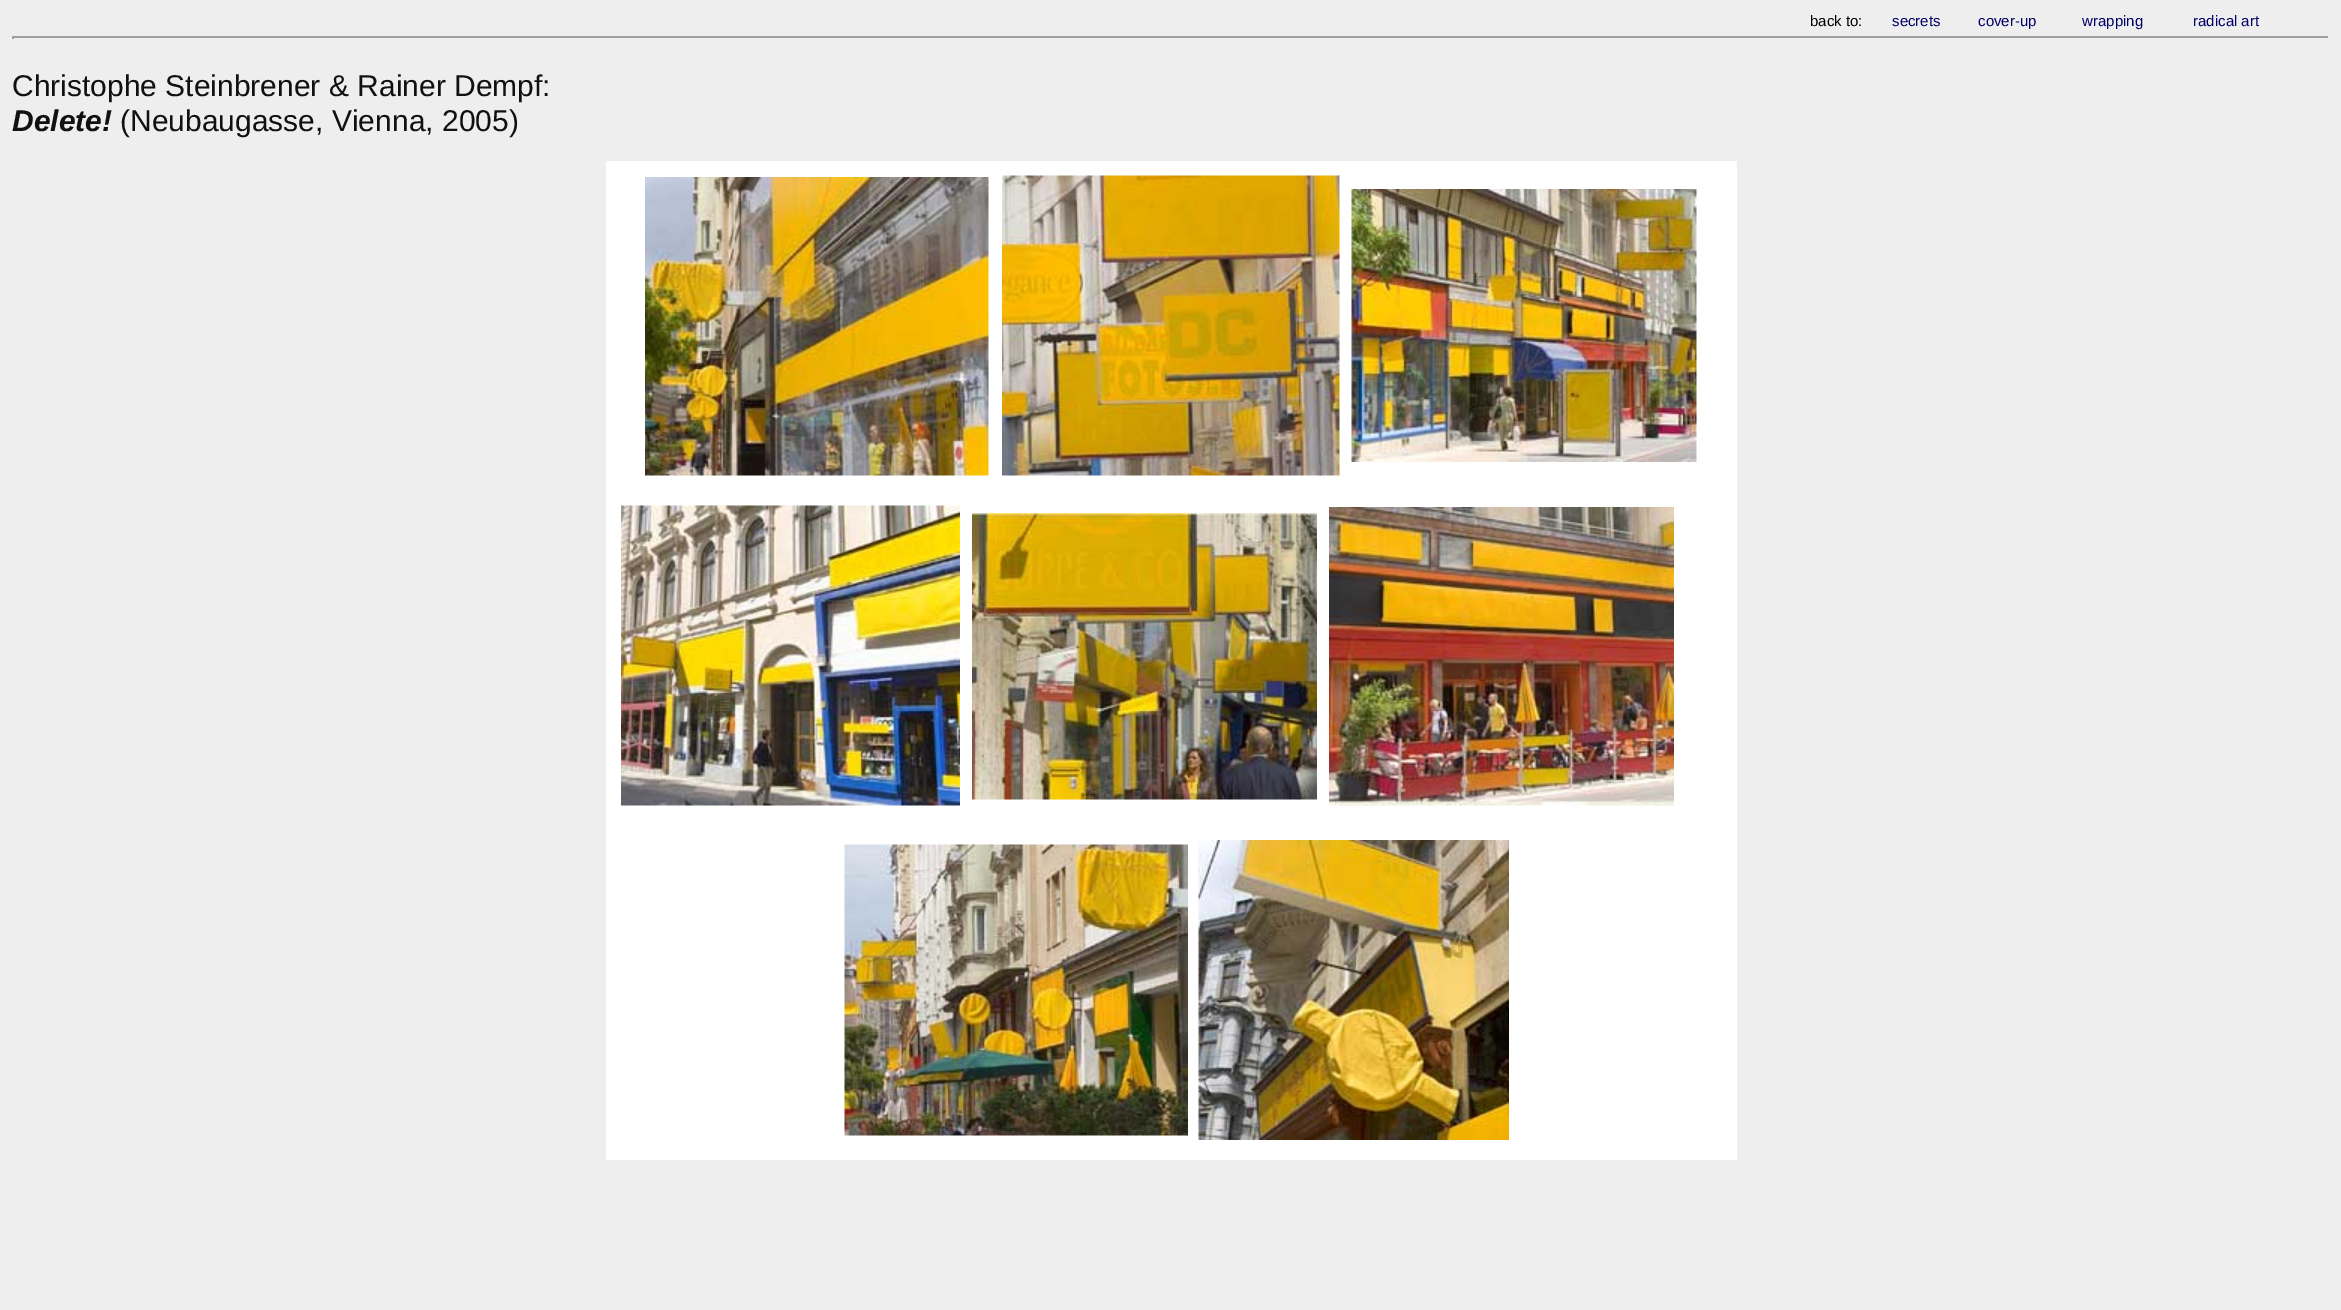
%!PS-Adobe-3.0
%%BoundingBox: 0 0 2341 1310
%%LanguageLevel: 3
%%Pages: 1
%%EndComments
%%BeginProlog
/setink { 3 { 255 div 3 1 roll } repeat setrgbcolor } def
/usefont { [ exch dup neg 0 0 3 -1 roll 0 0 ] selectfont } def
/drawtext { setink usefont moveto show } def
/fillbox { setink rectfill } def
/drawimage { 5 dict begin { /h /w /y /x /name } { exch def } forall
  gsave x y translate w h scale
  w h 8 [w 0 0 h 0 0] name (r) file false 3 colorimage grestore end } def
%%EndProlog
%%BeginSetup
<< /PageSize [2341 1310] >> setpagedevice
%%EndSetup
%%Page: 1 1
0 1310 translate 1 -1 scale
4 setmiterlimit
0 0 2341 1310 238 238 238 fillbox
(back to:) 1810 26 /LiberationSans-Regular 15 0 0 0 drawtext
(secrets) 1892 26 /LiberationSans-Regular 15 0 0 102 drawtext
(cover-up) 1978 26 /LiberationSans-Regular 15 0 0 102 drawtext
(wrapping) 2082 26 /LiberationSans-Regular 15 0 0 102 drawtext
(radical art) 2193 26 /LiberationSans-Regular 15 0 0 102 drawtext
12 36 2318 2 159 159 159 fillbox
2328 36 2 3 238 238 238 fillbox
12 36 2 3 159 159 159 fillbox
(Christophe Steinbrener & Rainer Dempf:) 12 96 /LiberationSans-Regular 30 17 17 17 drawtext
(Delete!) 12 131 /LiberationSans-BoldItalic 30 17 17 17 drawtext
(\(Neubaugasse, Vienna, 2005\)) 120 131 /LiberationSans-Regular 30 17 17 17 drawtext
606 161 1131 999 255 255 255 fillbox
(assets/img1.rgb) 645 177 344 299 drawimage
(assets/img2.rgb) 1002 175 338 301 drawimage
(assets/img3.rgb) 1351 189 346 273 drawimage
(assets/img4.rgb) 621 505 339 301 drawimage
(assets/img5.rgb) 972 513 345 287 drawimage
(assets/img6.rgb) 1329 507 345 299 drawimage
(assets/img7.rgb) 844 844 344 292 drawimage
(assets/img8.rgb) 1198 840 311 300 drawimage
showpage
%%EOF
